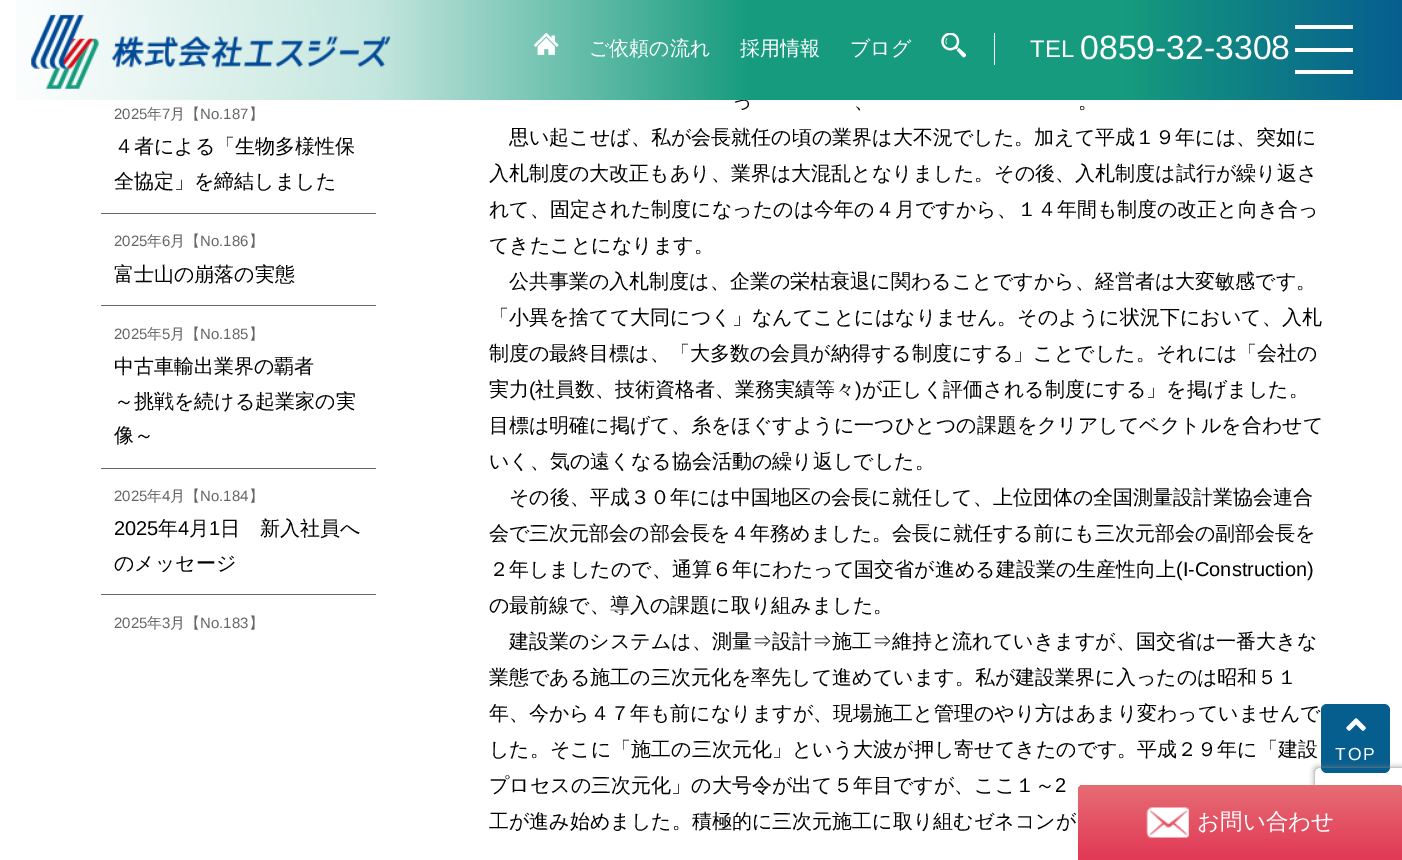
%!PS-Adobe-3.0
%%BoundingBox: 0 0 1402 860
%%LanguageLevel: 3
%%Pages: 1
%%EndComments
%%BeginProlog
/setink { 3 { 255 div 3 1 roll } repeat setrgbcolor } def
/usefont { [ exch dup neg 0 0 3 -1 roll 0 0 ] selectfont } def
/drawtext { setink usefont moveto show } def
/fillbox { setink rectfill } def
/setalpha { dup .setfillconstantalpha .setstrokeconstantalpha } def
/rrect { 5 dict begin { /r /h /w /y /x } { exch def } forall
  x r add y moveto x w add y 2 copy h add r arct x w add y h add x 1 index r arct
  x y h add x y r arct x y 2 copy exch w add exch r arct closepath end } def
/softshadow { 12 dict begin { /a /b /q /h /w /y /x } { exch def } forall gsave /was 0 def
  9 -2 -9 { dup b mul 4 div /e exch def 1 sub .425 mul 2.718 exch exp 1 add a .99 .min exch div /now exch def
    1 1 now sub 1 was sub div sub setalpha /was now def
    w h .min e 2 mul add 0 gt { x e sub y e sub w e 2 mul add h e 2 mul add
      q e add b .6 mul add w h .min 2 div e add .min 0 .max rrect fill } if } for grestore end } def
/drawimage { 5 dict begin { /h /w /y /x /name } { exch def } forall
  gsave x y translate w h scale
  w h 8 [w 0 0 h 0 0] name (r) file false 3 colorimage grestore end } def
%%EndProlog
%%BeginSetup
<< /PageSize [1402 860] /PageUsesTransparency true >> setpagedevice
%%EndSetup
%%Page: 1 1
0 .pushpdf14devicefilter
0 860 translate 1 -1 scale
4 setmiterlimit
0 0 1402 860 255 255 255 fillbox
(っ) 732 108 /WenQuanYiZenHei-Medium 20 0 0 0 drawtext
gsave 16 0 moveto 1402 0 lineto 1402 100 lineto 16 100 lineto closepath clip newpath
<< /ShadingType 2 /ColorSpace /DeviceRGB /Coords [0 50 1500 50] /Extend [true true] /Function << /FunctionType 3 /Domain [0 1] /Functions [<< /FunctionType 2 /Domain [0 1] /C0 [1 1 1] /C1 [0.769 0.902 0.871] /N 1 >> << /FunctionType 2 /Domain [0 1] /C0 [0.769 0.902 0.871] /C1 [0.086 0.608 0.494] /N 1 >> << /FunctionType 2 /Domain [0 1] /C0 [0.086 0.608 0.494] /C1 [0.086 0.608 0.494] /N 1 >> << /FunctionType 2 /Domain [0 1] /C0 [0.086 0.608 0.494] /C1 [0 0.286 0.584] /N 1 >>] /Bounds [0.25 0.5 0.75] /Encode [0 1 0 1 0 1 0 1] >> >> shfill grestore
(assets/img1.rgb) 31 14 360 75 drawimage
(assets/img2.rgb) 534 33 25 22 drawimage
(ご依頼の流れ) 589 55 /WenQuanYiZenHei-Medium 20 255 255 255 drawtext
(採用情報) 740 55 /WenQuanYiZenHei-Medium 20 255 255 255 drawtext
(ブログ) 850 55 /WenQuanYiZenHei-Medium 20 255 255 255 drawtext
(assets/img3.rgb) 941 33 25 25 drawimage
994 33 1 32 255 255 255 fillbox
(TEL) 1030 57 /LiberationSans-Regular 24 255 255 255 drawtext
(0859-32-3308) 1080 59 /LiberationSans-Regular 33.75 255 255 255 drawtext
1295 48 58 4 255 255 255 fillbox
1295 25 58 4 255 255 255 fillbox
1295 70 58 4 255 255 255 fillbox
101 213 275 1 102 102 102 fillbox
(2025) 114 119 /LiberationSans-Regular 15 102 102 102 drawtext
(年) 147 119 /WenQuanYiZenHei-Medium 15 102 102 102 drawtext
(7) 162 119 /LiberationSans-Regular 15 102 102 102 drawtext
(月【) 170 119 /WenQuanYiZenHei-Medium 15 102 102 102 drawtext
(No.187) 200 119 /LiberationSans-Regular 15 102 102 102 drawtext
(】) 249 119 /WenQuanYiZenHei-Medium 15 102 102 102 drawtext
(４者による「生物多様性保) 114 153 /WenQuanYiZenHei-Medium 20 0 0 0 drawtext
(全協定」を締結しました) 114 188 /WenQuanYiZenHei-Medium 20 0 0 0 drawtext
101 305 275 1 102 102 102 fillbox
(2025) 114 246 /LiberationSans-Regular 15 102 102 102 drawtext
(年) 147 246 /WenQuanYiZenHei-Medium 15 102 102 102 drawtext
(6) 162 246 /LiberationSans-Regular 15 102 102 102 drawtext
(月【) 170 246 /WenQuanYiZenHei-Medium 15 102 102 102 drawtext
(No.186) 200 246 /LiberationSans-Regular 15 102 102 102 drawtext
(】) 249 246 /WenQuanYiZenHei-Medium 15 102 102 102 drawtext
(富士山の崩落の実態) 114 281 /WenQuanYiZenHei-Medium 20 0 0 0 drawtext
101 468 275 1 102 102 102 fillbox
(2025) 114 339 /LiberationSans-Regular 15 102 102 102 drawtext
(年) 147 339 /WenQuanYiZenHei-Medium 15 102 102 102 drawtext
(5) 162 339 /LiberationSans-Regular 15 102 102 102 drawtext
(月【) 170 339 /WenQuanYiZenHei-Medium 15 102 102 102 drawtext
(No.185) 200 339 /LiberationSans-Regular 15 102 102 102 drawtext
(】) 249 339 /WenQuanYiZenHei-Medium 15 102 102 102 drawtext
(中古車輸出業界の覇者) 114 373 /WenQuanYiZenHei-Medium 20 0 0 0 drawtext
(～挑戦を続ける起業家の実) 114 408 /WenQuanYiZenHei-Medium 20 0 0 0 drawtext
(像～) 114 442 /WenQuanYiZenHei-Medium 20 0 0 0 drawtext
101 594 275 1 102 102 102 fillbox
(2025) 114 501 /LiberationSans-Regular 15 102 102 102 drawtext
(年) 147 501 /WenQuanYiZenHei-Medium 15 102 102 102 drawtext
(4) 162 501 /LiberationSans-Regular 15 102 102 102 drawtext
(月【) 170 501 /WenQuanYiZenHei-Medium 15 102 102 102 drawtext
(No.184) 200 501 /LiberationSans-Regular 15 102 102 102 drawtext
(】) 249 501 /WenQuanYiZenHei-Medium 15 102 102 102 drawtext
(2025) 114 535 /LiberationSans-Regular 20 0 0 0 drawtext
(年) 158 535 /WenQuanYiZenHei-Medium 20 0 0 0 drawtext
(4) 178 535 /LiberationSans-Regular 20 0 0 0 drawtext
(月) 189 535 /WenQuanYiZenHei-Medium 20 0 0 0 drawtext
(1) 209 535 /LiberationSans-Regular 20 0 0 0 drawtext
(日　新入社員へ) 220 535 /WenQuanYiZenHei-Medium 20 0 0 0 drawtext
(のメッセージ) 114 570 /WenQuanYiZenHei-Medium 20 0 0 0 drawtext
(2025) 114 628 /LiberationSans-Regular 15 102 102 102 drawtext
(年) 147 628 /WenQuanYiZenHei-Medium 15 102 102 102 drawtext
(3) 162 628 /LiberationSans-Regular 15 102 102 102 drawtext
(月【) 170 628 /WenQuanYiZenHei-Medium 15 102 102 102 drawtext
(No.183) 200 628 /LiberationSans-Regular 15 102 102 102 drawtext
(】) 249 628 /WenQuanYiZenHei-Medium 15 102 102 102 drawtext
(、) 854 108 /WenQuanYiZenHei-Medium 20 0 0 0 drawtext
(。) 1078 108 /WenQuanYiZenHei-Medium 20 0 0 0 drawtext
(思い起こせば、私が会長就任の頃の業界は大不況でした。加えて平成１９年には、突如に) 509 144 /WenQuanYiZenHei-Medium 20 0 0 0 drawtext
(入札制度の大改正もあり、業界は大混乱となりました。その後、入札制度は試行が繰り返さ) 489 180 /WenQuanYiZenHei-Medium 20 0 0 0 drawtext
(れて、固定された制度になったのは今年の４月ですから、１４年間も制度の改正と向き合っ) 489 216 /WenQuanYiZenHei-Medium 20 0 0 0 drawtext
(てきたことになります。) 489 252 /WenQuanYiZenHei-Medium 20 0 0 0 drawtext
(公共事業の入札制度は、企業の栄枯衰退に関わることですから、経営者は大変敏感です。) 509 288 /WenQuanYiZenHei-Medium 20 0 0 0 drawtext
(「小異を捨てて大同につく」なんてことにはなりません。そのように状況下において、入札) 489 324 /WenQuanYiZenHei-Medium 20 0 0 0 drawtext
(制度の最終目標は、「大多数の会員が納得する制度にする」ことでした。それには「会社の) 489 360 /WenQuanYiZenHei-Medium 20 0 0 0 drawtext
(実力) 489 396 /WenQuanYiZenHei-Medium 20 0 0 0 drawtext
(\() 529 396 /LiberationSans-Regular 20 0 0 0 drawtext
(社員数、技術資格者、業務実績等々) 535 396 /WenQuanYiZenHei-Medium 20 0 0 0 drawtext
(\)) 855 396 /LiberationSans-Regular 20 0 0 0 drawtext
(が正しく評価される制度にする」を掲げました。) 862 396 /WenQuanYiZenHei-Medium 20 0 0 0 drawtext
(目標は明確に掲げて、糸をほぐすように一つひとつの課題をクリアしてベクトルを合わせて) 489 432 /WenQuanYiZenHei-Medium 20 0 0 0 drawtext
(いく、気の遠くなる協会活動の繰り返しでした。) 489 468 /WenQuanYiZenHei-Medium 20 0 0 0 drawtext
(その後、平成３０年には中国地区の会長に就任して、上位団体の全国測量設計業協会連合) 509 504 /WenQuanYiZenHei-Medium 20 0 0 0 drawtext
(会で三次元部会の部会長を４年務めました。会長に就任する前にも三次元部会の副部会長を) 489 540 /WenQuanYiZenHei-Medium 20 0 0 0 drawtext
(２年しましたので、通算６年にわたって国交省が進める建設業の生産性向上) 489 576 /WenQuanYiZenHei-Medium 20 0 0 0 drawtext
(\(I-Construction\)) 1176 576 /LiberationSans-Regular 20 0 0 0 drawtext
(の最前線で、導入の課題に取り組みました。) 489 612 /WenQuanYiZenHei-Medium 20 0 0 0 drawtext
(建設業のシステムは、測量⇒設計⇒施工⇒維持と流れていきますが、国交省は一番大きな) 509 648 /WenQuanYiZenHei-Medium 20 0 0 0 drawtext
(業態である施工の三次元化を率先して進めています。私が建設業界に入ったのは昭和５１) 489 684 /WenQuanYiZenHei-Medium 20 0 0 0 drawtext
(年、今から４７年も前になりますが、現場施工と管理のやり方はあまり変わっていませんで) 489 720 /WenQuanYiZenHei-Medium 20 0 0 0 drawtext
(した。そこに「施工の三次元化」という大波が押し寄せてきたのです。平成２９年に「建設) 489 756 /WenQuanYiZenHei-Medium 20 0 0 0 drawtext
(プロセスの三次元化」の大号令が出て５年目ですが、ここ１～) 489 792 /WenQuanYiZenHei-Medium 20 0 0 0 drawtext
(2) 1055 792 /LiberationSans-Regular 20 0 0 0 drawtext
(工が進み始めました。積極的に三次元施工に取り組むゼネコンが) 489 828 /WenQuanYiZenHei-Medium 20 0 0 0 drawtext
6 94 143 setink
1321 704 69 69 6 rrect fill
(assets/img4.rgb) 1346 718 20 13 drawimage
/LiberationSans-Regular 17.5 usefont
255 255 255 setink
1335 760 moveto 2 0 (TOP) ashow
gsave
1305 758 moveto 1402 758 lineto 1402 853 lineto 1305 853 lineto closepath 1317.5 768 moveto 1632.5 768 lineto 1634 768 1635 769 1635 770.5 curveto 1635 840.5 lineto 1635 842 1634 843 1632.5 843 curveto 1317.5 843 lineto 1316 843 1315 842 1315 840.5 curveto 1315 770.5 lineto 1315 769 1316 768 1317.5 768 curveto closepath eoclip newpath
128 128 128 setink
1315 768 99 75 2.5 3 1 softshadow
grestore
gsave 1084 785 moveto 1397 785 lineto 1400.5 785 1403 787.5 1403 791 curveto 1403 860 lineto 1078 860 lineto 1078 791 lineto 1078 787.5 1080.5 785 1084 785 curveto closepath clip newpath
<< /ShadingType 2 /ColorSpace /DeviceRGB /Coords [1240 785 1240 860] /Extend [true true] /Function << /FunctionType 2 /Domain [0 1] /C0 [0.902 0.427 0.455] /C1 [0.882 0.22 0.333] /N 1 >> >> shfill grestore
(assets/img5.rgb) 1146 807 43 31 drawimage
(お問い合わせ) 1197 829 /WenQuanYiZenHei-Medium 22.5 255 255 255 drawtext
.poppdf14devicefilter showpage
%%EOF
